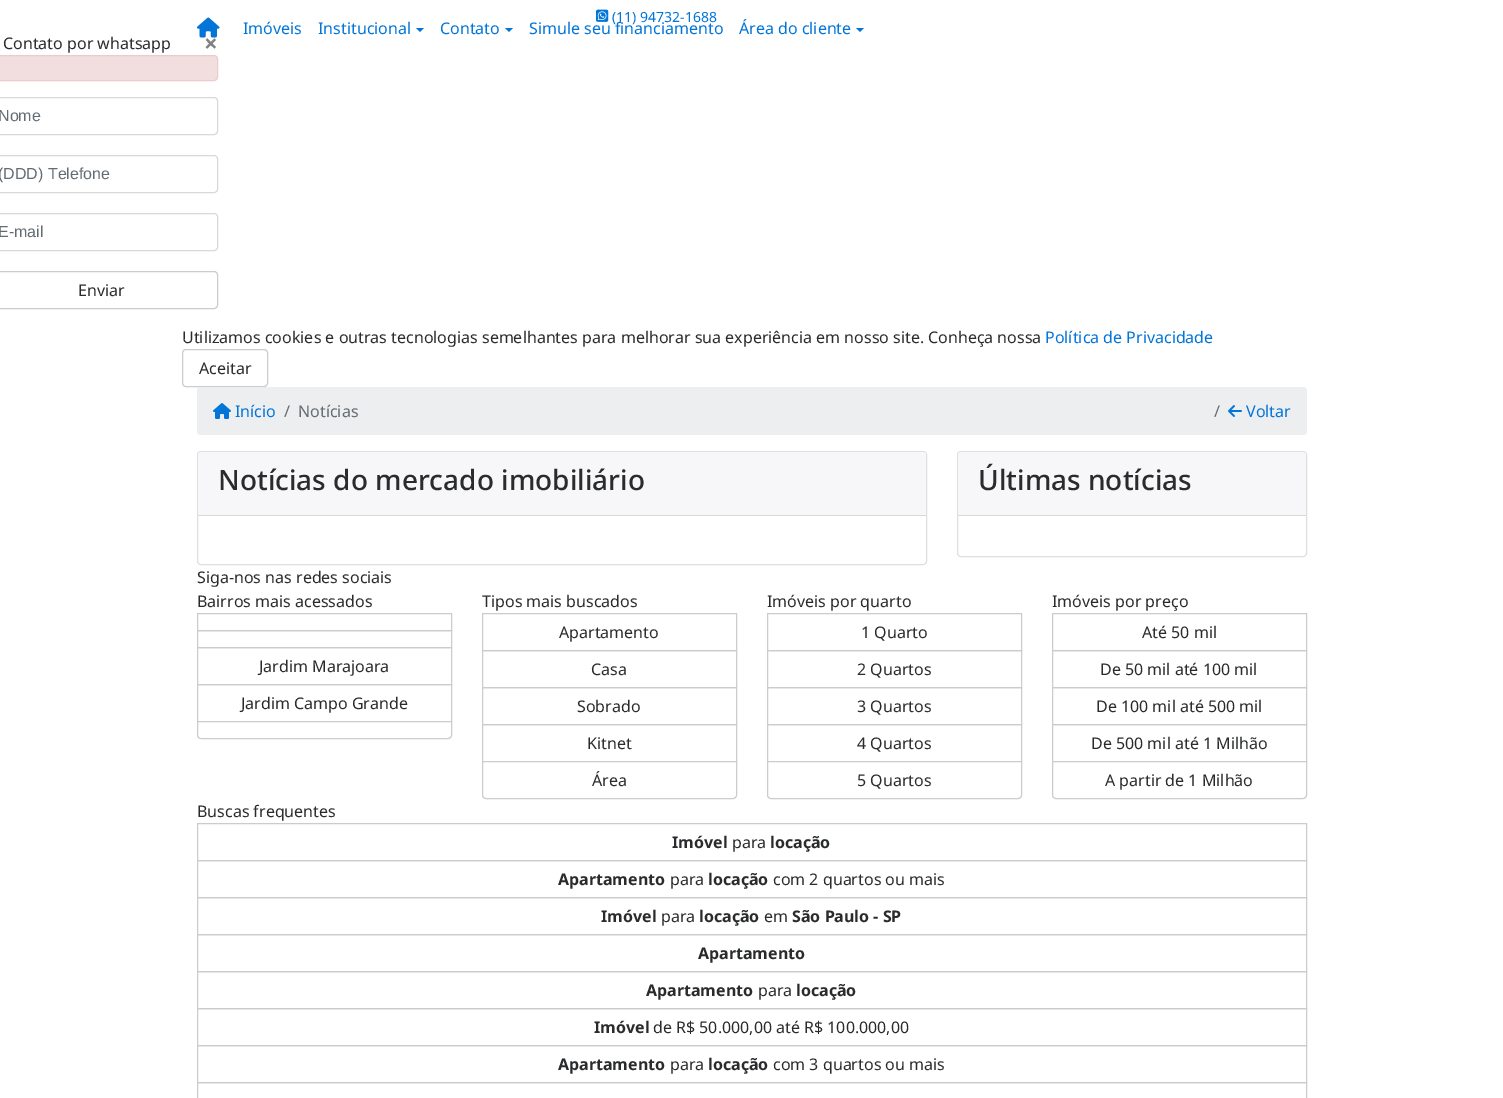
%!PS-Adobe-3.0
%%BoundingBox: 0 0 1503 1098
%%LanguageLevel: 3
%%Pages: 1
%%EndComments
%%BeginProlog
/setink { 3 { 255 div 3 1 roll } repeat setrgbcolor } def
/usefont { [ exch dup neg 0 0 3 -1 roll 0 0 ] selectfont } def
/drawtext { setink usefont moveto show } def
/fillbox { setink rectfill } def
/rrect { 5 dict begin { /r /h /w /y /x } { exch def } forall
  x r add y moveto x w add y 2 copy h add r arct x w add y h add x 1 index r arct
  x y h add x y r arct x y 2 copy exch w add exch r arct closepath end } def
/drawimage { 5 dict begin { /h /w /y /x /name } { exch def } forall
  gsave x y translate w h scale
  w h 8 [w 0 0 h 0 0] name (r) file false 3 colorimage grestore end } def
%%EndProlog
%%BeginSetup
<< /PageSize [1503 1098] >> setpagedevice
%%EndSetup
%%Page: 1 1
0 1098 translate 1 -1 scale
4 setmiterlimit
0 0 1503 1098 255 255 255 fillbox
(assets/img1.rgb) 596 9 13 13 drawimage
(\(11\) 94732-1688) 612 22 /NotoSans-Regular 14 2 117 216 drawtext
(assets/img2.rgb) 197 17 23 21 drawimage
(Imóveis) 243 34 /NotoSans-Regular 16 2 117 216 drawtext
(Institucional) 318 34 /NotoSans-Regular 16 2 117 216 drawtext
416 28 moveto 424 28 lineto 420 32 lineto closepath fill
(Contato) 440 34 /NotoSans-Regular 16 2 117 216 drawtext
505 28 moveto 513 28 lineto 509 32 lineto closepath fill
(Simule seu financiamento) 529 34 /NotoSans-Regular 16 2 117 216 drawtext
(Área do cliente) 739 34 /NotoSans-Regular 16 2 117 216 drawtext
856 28 moveto 864 28 lineto 860 32 lineto closepath fill
(Contato por whatsapp) 3 49 /NotoSans-Regular 16 41 43 44 drawtext
(×) 204 52 /NotoSans-Bold 24 128 128 128 drawtext
242 222 222 setink
-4.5 55.5 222 25 3.5 rrect gsave fill grestore
235 204 204 setink
stroke
217 217 217 setink
-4.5 97.5 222 37 3.5 rrect stroke
(Nome) -2 121 /LiberationSans-Regular 16 99 108 114 drawtext
217 217 217 setink
-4.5 155.5 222 37 3.5 rrect stroke
(\(DDD\) Telefone) -2 179 /LiberationSans-Regular 16 99 108 114 drawtext
217 217 217 setink
-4.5 213.5 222 37 3.5 rrect stroke
(E-mail) -2 237 /LiberationSans-Regular 16 99 108 114 drawtext
204 204 204 setink
-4.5 271.5 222 37 3.5 rrect stroke
(Enviar) 78 296 /NotoSans-Regular 16 41 43 44 drawtext
(Utilizamos cookies e outras tecnologias semelhantes para melhorar sua experiência em nosso site. Conheça nossa) 182 343 /NotoSans-Regular 16 41 43 44 drawtext
(Política de Privacidade) 1045 343 /NotoSans-Regular 16 2 117 216 drawtext
204 204 204 setink
182.5 349.5 85 37 3.5 rrect stroke
(Aceitar) 199 374 /NotoSans-Regular 16 41 43 44 drawtext
236 238 239 setink
197 387 1110 48 4 rrect fill
(assets/img3.rgb) 213 403 18 16 drawimage
(Início) 235 417 /NotoSans-Regular 16 2 117 216 drawtext
(/) 284 417 /NotoSans-Regular 16 99 108 114 drawtext
(Notícias) 298 417 /NotoSans-Regular 16 99 108 114 drawtext
(/) 1214 417 /NotoSans-Regular 16 99 108 114 drawtext
(assets/img4.rgb) 1228 405 14 12 drawimage
(Voltar) 1246 417 /NotoSans-Regular 16 2 117 216 drawtext
223 223 223 setink
197.5 451.5 729 113 3.5 rrect stroke
247 247 249 setink
201 452 moveto 923 452 lineto 924.5 452 926 453.5 926 455 curveto 926 516 lineto 198 516 lineto 198 455 lineto 198 453.5 199.5 452 201 452 curveto closepath fill
198 515 728 1 216 216 218 fillbox
(Notícias do mercado imobiliário) 218 490 /NotoSans-Medium 28 41 43 44 drawtext
223 223 223 setink
957.5 451.5 349 105 3.5 rrect stroke
247 247 249 setink
961 452 moveto 1303 452 lineto 1304.5 452 1306 453.5 1306 455 curveto 1306 516 lineto 958 516 lineto 958 455 lineto 958 453.5 959.5 452 961 452 curveto closepath fill
958 515 348 1 216 216 218 fillbox
(Últimas notícias) 978 490 /NotoSans-Medium 28 41 43 44 drawtext
(Siga-nos nas redes sociais) 197 583 /NotoSans-Regular 16 41 43 44 drawtext
(Bairros mais acessados) 197 607 /NotoSans-Regular 16 41 43 44 drawtext
204 204 204 setink
197.5 613.5 254 17 rectstroke
197.5 630.5 254 17 rectstroke
197.5 647.5 254 37 rectstroke
(Jardim Marajoara) 259 672 /NotoSans-Regular 16 41 43 44 drawtext
204 204 204 setink
197.5 684.5 254 37 rectstroke
(Jardim Campo Grande) 241 709 /NotoSans-Regular 16 41 43 44 drawtext
255 255 255 setink
197.5 721.5 moveto 451.5 721.5 lineto 451.5 735 lineto 451.5 737 450 738.5 448 738.5 curveto 201 738.5 lineto 199 738.5 197.5 737 197.5 735 curveto closepath gsave fill grestore
204 204 204 setink
stroke
(Tipos mais buscados) 482 607 /NotoSans-Regular 16 41 43 44 drawtext
204 204 204 setink
482.5 613.5 254 37 rectstroke
(Apartamento) 559 638 /NotoSans-Regular 16 41 43 44 drawtext
204 204 204 setink
482.5 650.5 254 37 rectstroke
(Casa) 591 675 /NotoSans-Regular 16 41 43 44 drawtext
204 204 204 setink
482.5 687.5 254 37 rectstroke
(Sobrado) 577 712 /NotoSans-Regular 16 41 43 44 drawtext
204 204 204 setink
482.5 724.5 254 37 rectstroke
(Kitnet) 587 749 /NotoSans-Regular 16 41 43 44 drawtext
255 255 255 setink
482.5 761.5 moveto 736.5 761.5 lineto 736.5 795 lineto 736.5 797 735 798.5 733 798.5 curveto 486 798.5 lineto 484 798.5 482.5 797 482.5 795 curveto closepath gsave fill grestore
204 204 204 setink
stroke
(Área) 592 786 /NotoSans-Regular 16 41 43 44 drawtext
(Imóveis por quarto) 767 607 /NotoSans-Regular 16 41 43 44 drawtext
204 204 204 setink
767.5 613.5 254 37 rectstroke
(1 Quarto) 861 638 /NotoSans-Regular 16 41 43 44 drawtext
204 204 204 setink
767.5 650.5 254 37 rectstroke
(2 Quartos) 857 675 /NotoSans-Regular 16 41 43 44 drawtext
204 204 204 setink
767.5 687.5 254 37 rectstroke
(3 Quartos) 857 712 /NotoSans-Regular 16 41 43 44 drawtext
204 204 204 setink
767.5 724.5 254 37 rectstroke
(4 Quartos) 857 749 /NotoSans-Regular 16 41 43 44 drawtext
255 255 255 setink
767.5 761.5 moveto 1021.5 761.5 lineto 1021.5 795 lineto 1021.5 797 1020 798.5 1018 798.5 curveto 771 798.5 lineto 769 798.5 767.5 797 767.5 795 curveto closepath gsave fill grestore
204 204 204 setink
stroke
(5 Quartos) 857 786 /NotoSans-Regular 16 41 43 44 drawtext
(Imóveis por preço) 1052 607 /NotoSans-Regular 16 41 43 44 drawtext
204 204 204 setink
1052.5 613.5 254 37 rectstroke
(Até 50 mil) 1142 638 /NotoSans-Regular 16 41 43 44 drawtext
204 204 204 setink
1052.5 650.5 254 37 rectstroke
(De 50 mil até 100 mil) 1100 675 /NotoSans-Regular 16 41 43 44 drawtext
204 204 204 setink
1052.5 687.5 254 37 rectstroke
(De 100 mil até 500 mil) 1096 712 /NotoSans-Regular 16 41 43 44 drawtext
204 204 204 setink
1052.5 724.5 254 37 rectstroke
(De 500 mil até 1 Milhão) 1091 749 /NotoSans-Regular 16 41 43 44 drawtext
255 255 255 setink
1052.5 761.5 moveto 1306.5 761.5 lineto 1306.5 795 lineto 1306.5 797 1305 798.5 1303 798.5 curveto 1056 798.5 lineto 1054 798.5 1052.5 797 1052.5 795 curveto closepath gsave fill grestore
204 204 204 setink
stroke
(A partir de 1 Milhão) 1105 786 /NotoSans-Regular 16 41 43 44 drawtext
(Buscas frequentes) 197 817 /NotoSans-Regular 16 41 43 44 drawtext
204 204 204 setink
197.5 823.5 1109 37 rectstroke
(Imóvel) 672 848 /NotoSans-Bold 16 41 43 44 drawtext
(para) 732 848 /NotoSans-Regular 16 41 43 44 drawtext
(locação) 770 848 /NotoSans-Bold 16 41 43 44 drawtext
204 204 204 setink
197.5 860.5 1109 37 rectstroke
(Apartamento) 558 885 /NotoSans-Bold 16 41 43 44 drawtext
(para) 670 885 /NotoSans-Regular 16 41 43 44 drawtext
(locação) 708 885 /NotoSans-Bold 16 41 43 44 drawtext
(com 2 quartos ou mais) 773 885 /NotoSans-Regular 16 41 43 44 drawtext
204 204 204 setink
197.5 897.5 1109 37 rectstroke
(Imóvel) 601 922 /NotoSans-Bold 16 41 43 44 drawtext
(para) 661 922 /NotoSans-Regular 16 41 43 44 drawtext
(locação) 699 922 /NotoSans-Bold 16 41 43 44 drawtext
(em) 764 922 /NotoSans-Regular 16 41 43 44 drawtext
(São Paulo - SP) 792 922 /NotoSans-Bold 16 41 43 44 drawtext
204 204 204 setink
197.5 934.5 1109 37 rectstroke
(Apartamento) 698 959 /NotoSans-Bold 16 41 43 44 drawtext
204 204 204 setink
197.5 971.5 1109 37 rectstroke
(Apartamento) 646 996 /NotoSans-Bold 16 41 43 44 drawtext
(para) 758 996 /NotoSans-Regular 16 41 43 44 drawtext
(locação) 796 996 /NotoSans-Bold 16 41 43 44 drawtext
204 204 204 setink
197.5 1008.5 1109 37 rectstroke
(Imóvel) 594 1033 /NotoSans-Bold 16 41 43 44 drawtext
(de R$ 50.000,00 até R$ 100.000,00) 653 1033 /NotoSans-Regular 16 41 43 44 drawtext
204 204 204 setink
197.5 1045.5 1109 37 rectstroke
(Apartamento) 558 1070 /NotoSans-Bold 16 41 43 44 drawtext
(para) 670 1070 /NotoSans-Regular 16 41 43 44 drawtext
(locação) 708 1070 /NotoSans-Bold 16 41 43 44 drawtext
(com 3 quartos ou mais) 773 1070 /NotoSans-Regular 16 41 43 44 drawtext
204 204 204 setink
197.5 1082.5 1109 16 rectstroke
showpage
%%EOF
